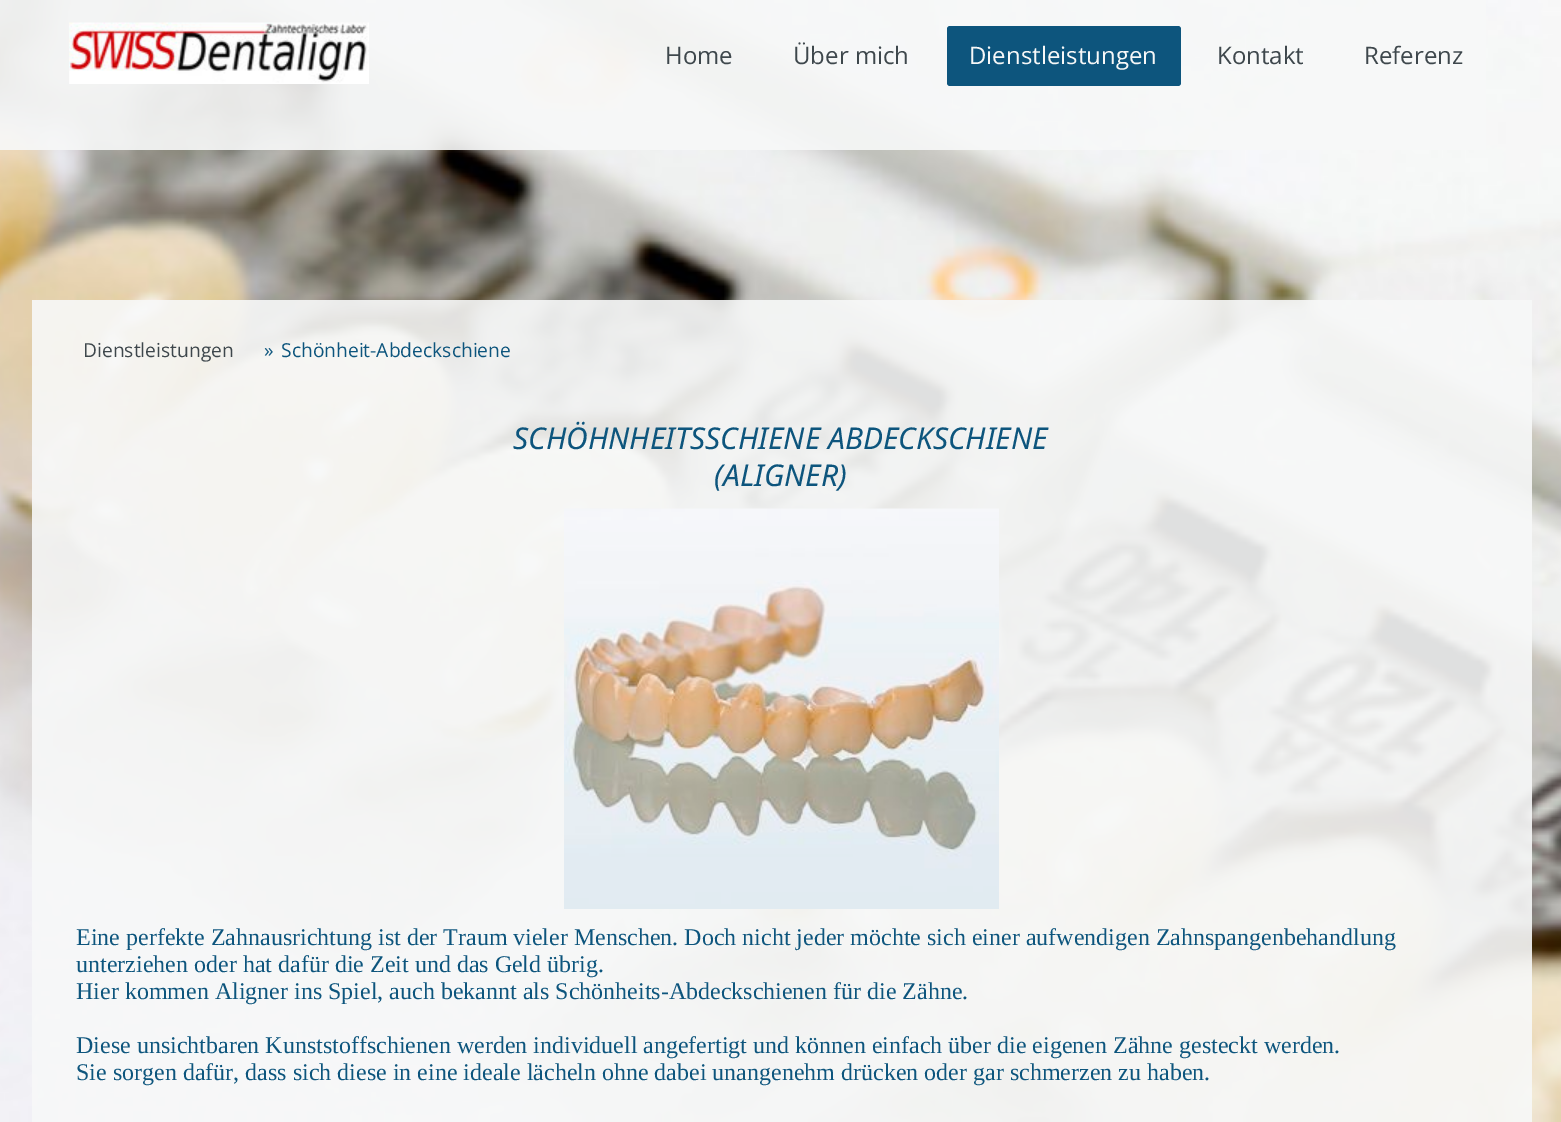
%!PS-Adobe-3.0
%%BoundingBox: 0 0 1561 1122
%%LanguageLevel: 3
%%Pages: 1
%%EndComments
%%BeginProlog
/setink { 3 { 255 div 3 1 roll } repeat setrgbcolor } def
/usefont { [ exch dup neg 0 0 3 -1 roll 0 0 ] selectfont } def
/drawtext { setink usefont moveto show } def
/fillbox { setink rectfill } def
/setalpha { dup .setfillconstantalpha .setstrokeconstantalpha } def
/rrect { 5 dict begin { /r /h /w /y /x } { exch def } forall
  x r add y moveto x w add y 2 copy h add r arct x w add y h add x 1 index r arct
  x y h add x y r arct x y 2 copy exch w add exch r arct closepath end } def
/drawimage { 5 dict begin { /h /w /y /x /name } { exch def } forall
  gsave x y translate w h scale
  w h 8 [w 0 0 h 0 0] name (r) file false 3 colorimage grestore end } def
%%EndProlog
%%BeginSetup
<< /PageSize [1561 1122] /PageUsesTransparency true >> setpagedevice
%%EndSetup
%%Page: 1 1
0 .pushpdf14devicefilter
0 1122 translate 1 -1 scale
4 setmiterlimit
0 0 1561 1122 255 255 255 fillbox
(assets/img1.rgb) 0 0 1561 1122 drawimage
0.9 setalpha
0 0 1486 150 247 248 248 fillbox
1 setalpha
(assets/img2.rgb) 69 22 300 62 drawimage
(Home) 665 64 /OpenSans-Regular 24 62 71 76 drawtext
(Über mich) 793 64 /OpenSans-Regular 24 62 71 76 drawtext
13 85 125 setink
947 26 234 60 3 rrect fill
(Dienstleistungen) 969 64 /OpenSans-Regular 24 247 248 248 drawtext
(Kontakt) 1217 64 /OpenSans-Regular 24 62 71 76 drawtext
(Referenz) 1364 64 /OpenSans-Regular 24 62 71 76 drawtext
0.9 setalpha
32 300 1500 822 247 248 248 fillbox
1 setalpha
(Dienstleistungen) 83 357 /OpenSans-Regular 19.25 62 71 76 drawtext
(») 264 357 /OpenSans-Regular 19.25 13 85 125 drawtext
(Schönheit-Abdeckschiene) 281 357 /OpenSans-Regular 19.25 13 85 125 drawtext
(SCHÖHNHEITSSCHIENE ABDECKSCHIENE) 513 449 /NotoSans-Italic 30 13 85 125 drawtext
(\(ALIGNER\)) 714 486 /NotoSans-Italic 30 13 85 125 drawtext
(assets/img3.rgb) 564 508 435 401 drawimage
(Eine perfekte Zahnausrichtung ist der Traum vieler Menschen. Doch nicht jeder möchte sich einer aufwendigen Zahnspangenbehandlung) 76 945 /LiberationSerif-Regular 24 13 85 125 drawtext
(unterziehen oder hat dafür die Zeit und das Geld übrig.) 76 972 /LiberationSerif-Regular 24 13 85 125 drawtext
(Hier kommen Aligner ins Spiel, auch bekannt als Schönheits-Abdeckschienen für die Zähne.) 76 999 /LiberationSerif-Regular 24 13 85 125 drawtext
(Diese unsichtbaren Kunststoffschienen werden individuell angefertigt und können einfach über die eigenen Zähne gesteckt werden.) 76 1053 /LiberationSerif-Regular 24 13 85 125 drawtext
(Sie sorgen dafür, dass sich diese in eine ideale lächeln ohne dabei unangenehm drücken oder gar schmerzen zu haben.) 76 1080 /LiberationSerif-Regular 24 13 85 125 drawtext
.poppdf14devicefilter showpage
%%EOF
